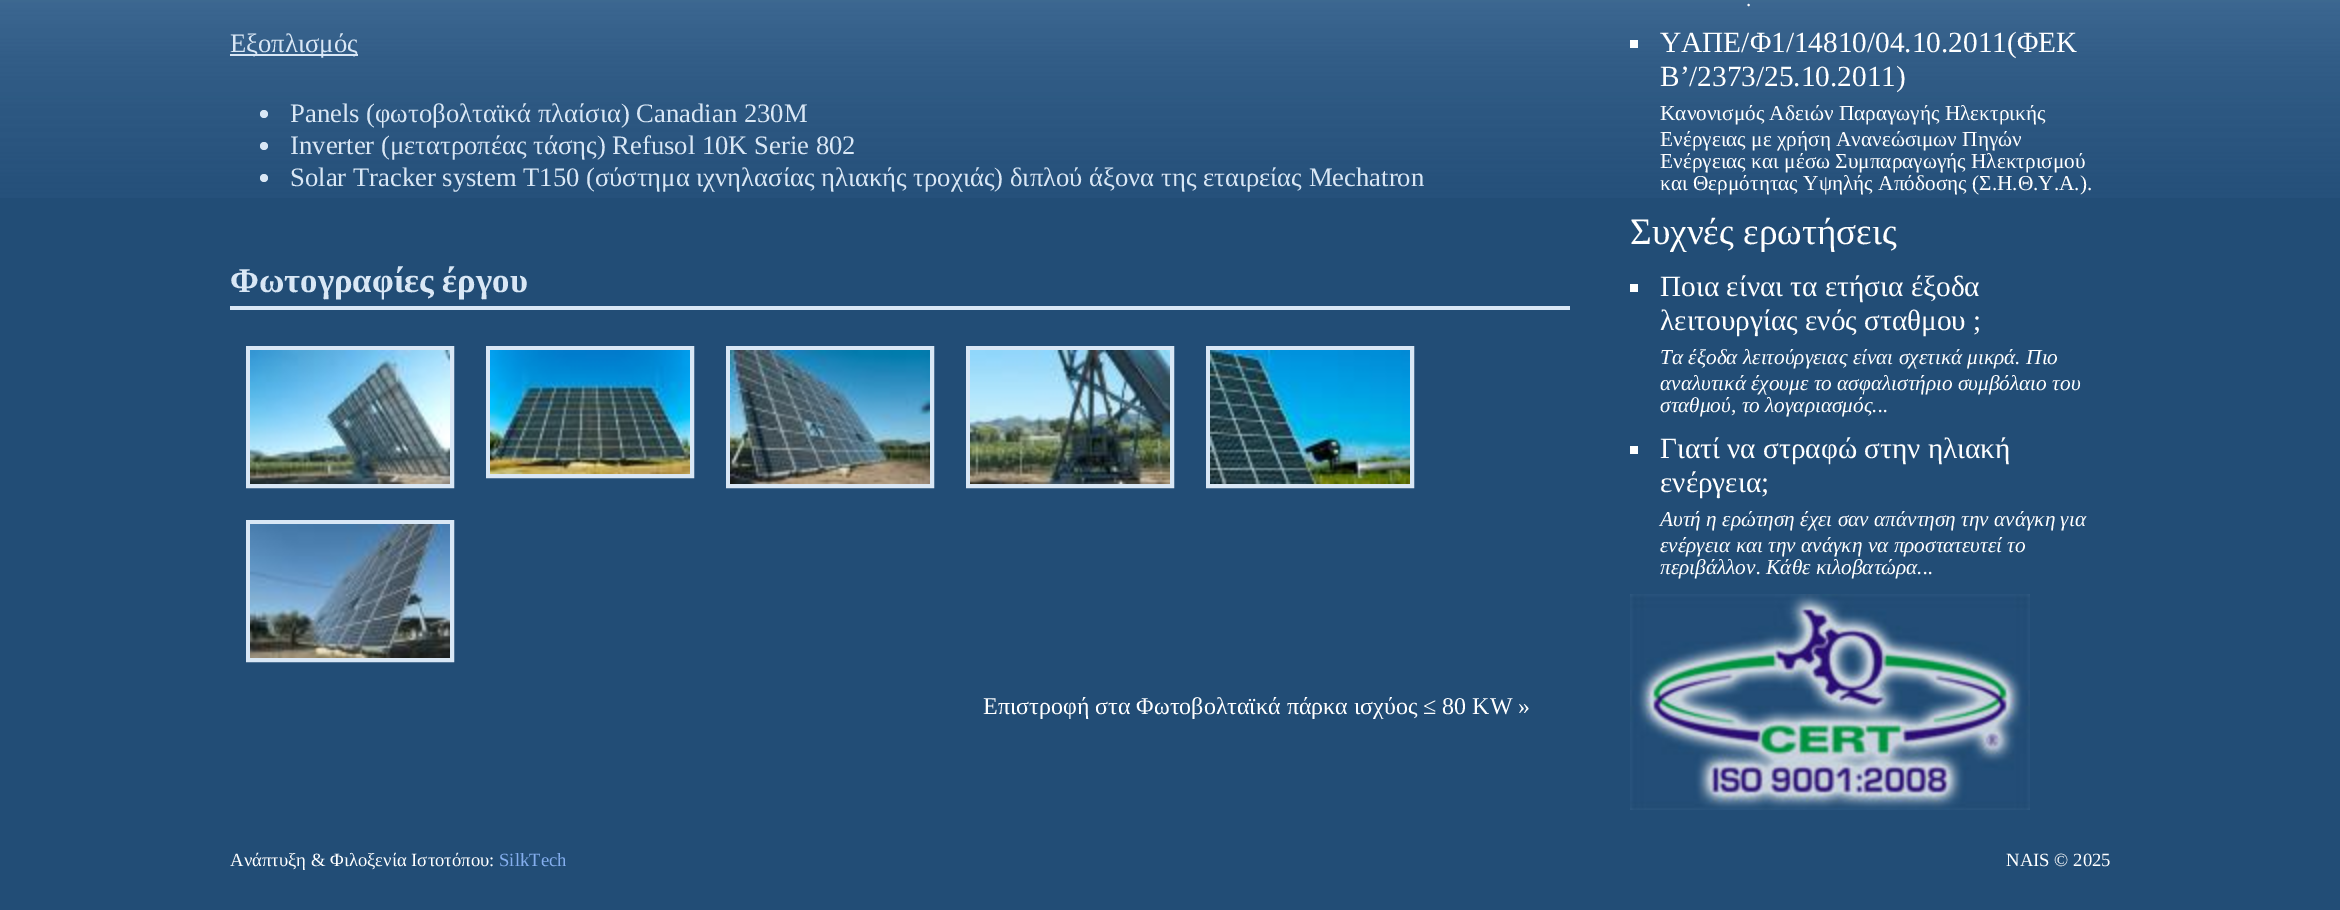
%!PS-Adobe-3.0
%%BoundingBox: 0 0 2340 910
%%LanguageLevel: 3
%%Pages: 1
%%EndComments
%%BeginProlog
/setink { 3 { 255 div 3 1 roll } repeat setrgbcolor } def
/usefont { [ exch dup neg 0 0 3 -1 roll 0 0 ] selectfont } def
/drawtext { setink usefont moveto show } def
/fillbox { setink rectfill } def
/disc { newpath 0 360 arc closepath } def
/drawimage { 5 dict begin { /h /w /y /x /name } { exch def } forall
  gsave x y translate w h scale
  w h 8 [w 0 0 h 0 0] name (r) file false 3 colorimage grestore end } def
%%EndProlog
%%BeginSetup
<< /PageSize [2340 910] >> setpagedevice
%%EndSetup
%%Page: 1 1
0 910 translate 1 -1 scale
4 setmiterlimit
0 0 2340 910 34 77 118 fillbox
(assets/img1.rgb) 0 0 2340 198 drawimage
230 54 128 2 217 231 245 fillbox
(Εξοπλισμός) 230 52 /LiberationSerif-Regular 26.65 217 231 245 drawtext
264 114 4 disc fill
(Panels \(φωτοβολταϊκά πλαίσια\) Canadian 230M) 290 122 /LiberationSerif-Regular 26.65 217 231 245 drawtext
264 146 4 disc fill
(Inverter \(μετατροπέας τάσης\) Refusol 10K Serie 802) 290 154 /LiberationSerif-Regular 26.65 217 231 245 drawtext
264 178 4 disc fill
(Solar Tracker system T150 \(σύστημα ιχνηλασίας ηλιακής τροχιάς\) διπλού άξονα της εταιρείας Mechatron) 290 186 /LiberationSerif-Regular 26.65 217 231 245 drawtext
230 306 1340 4 217 231 245 fillbox
(Φωτογραφίες έργου) 230 292 /LiberationSerif-Bold 34.75 217 231 245 drawtext
4 setlinewidth
248 348 204 138 rectstroke
(assets/img2.rgb) 250 350 200 134 drawimage
488 348 204 128 rectstroke
(assets/img3.rgb) 490 350 200 124 drawimage
728 348 204 138 rectstroke
(assets/img4.rgb) 730 350 200 134 drawimage
968 348 204 138 rectstroke
(assets/img5.rgb) 970 350 200 134 drawimage
1208 348 204 138 rectstroke
(assets/img6.rgb) 1210 350 200 134 drawimage
248 522 204 138 rectstroke
(assets/img7.rgb) 250 524 200 134 drawimage
(Επιστροφή στα Φωτοβολταϊκά πάρκα ισχύος ≤ 80 KW ») 983 714 /LiberationSerif-Regular 24 255 255 255 drawtext
(.) 1746 6 /LiberationSerif-Regular 21.3 255 255 255 drawtext
1630 40 8 8 255 255 255 fillbox
(ΥΑΠΕ/Φ1/14810/04.10.2011\(ΦΕΚ) 1660 52 /LiberationSerif-Regular 29.3 255 255 255 drawtext
(Β’/2373/25.10.2011\)) 1660 86 /LiberationSerif-Regular 29.3 255 255 255 drawtext
(Κανονισμός Αδειών Παραγωγής Ηλεκτρικής) 1660 120 /LiberationSerif-Regular 21.3 255 255 255 drawtext
(Ενέργειας με χρήση Ανανεώσιμων Πηγών) 1660 146 /LiberationSerif-Regular 21.3 255 255 255 drawtext
(Ενέργειας και μέσω Συμπαραγωγής Ηλεκτρισμού) 1660 168 /LiberationSerif-Regular 21.3 255 255 255 drawtext
(και Θερμότητας Υψηλής Απόδοσης \(Σ.Η.Θ.Υ.Α.\).) 1660 190 /LiberationSerif-Regular 21.3 255 255 255 drawtext
(Συχνές ερωτήσεις) 1630 244 /LiberationSerif-Regular 37.25 255 255 255 drawtext
1630 284 8 8 255 255 255 fillbox
(Ποια είναι τα ετήσια έξοδα) 1660 296 /LiberationSerif-Regular 29.3 255 255 255 drawtext
(λειτουργίας ενός σταθμου ;) 1660 330 /LiberationSerif-Regular 29.3 255 255 255 drawtext
(Τα έξοδα λειτούργειας είναι σχετικά μικρά. Πιο) 1660 364 /LiberationSerif-Italic 21.3 255 255 255 drawtext
(αναλυτικά έχουμε το ασφαλιστήριο συμβόλαιο του) 1660 390 /LiberationSerif-Italic 21.3 255 255 255 drawtext
(σταθμού, το λογαριασμός...) 1660 412 /LiberationSerif-Italic 21.3 255 255 255 drawtext
1630 446 8 8 255 255 255 fillbox
(Γιατί να στραφώ στην ηλιακή) 1660 458 /LiberationSerif-Regular 29.3 255 255 255 drawtext
(ενέργεια;) 1660 492 /LiberationSerif-Regular 29.3 255 255 255 drawtext
(Αυτή η ερώτηση έχει σαν απάντηση την ανάγκη για) 1660 526 /LiberationSerif-Italic 21.3 255 255 255 drawtext
(ενέργεια και την ανάγκη να προστατευτεί το) 1660 552 /LiberationSerif-Italic 21.3 255 255 255 drawtext
(περιβάλλον. Κάθε κιλοβατώρα...) 1660 574 /LiberationSerif-Italic 21.3 255 255 255 drawtext
(assets/img8.rgb) 1630 594 400 216 drawimage
(Ανάπτυξη & Φιλοξενία Ιστοτόπου:) 230 866 /LiberationSerif-Regular 18.7 255 255 255 drawtext
(SilkTech) 499 866 /LiberationSerif-Regular 18.7 132 174 238 drawtext
(NAIS © 2025) 2006 866 /LiberationSerif-Regular 18.7 255 255 255 drawtext
showpage
%%EOF
